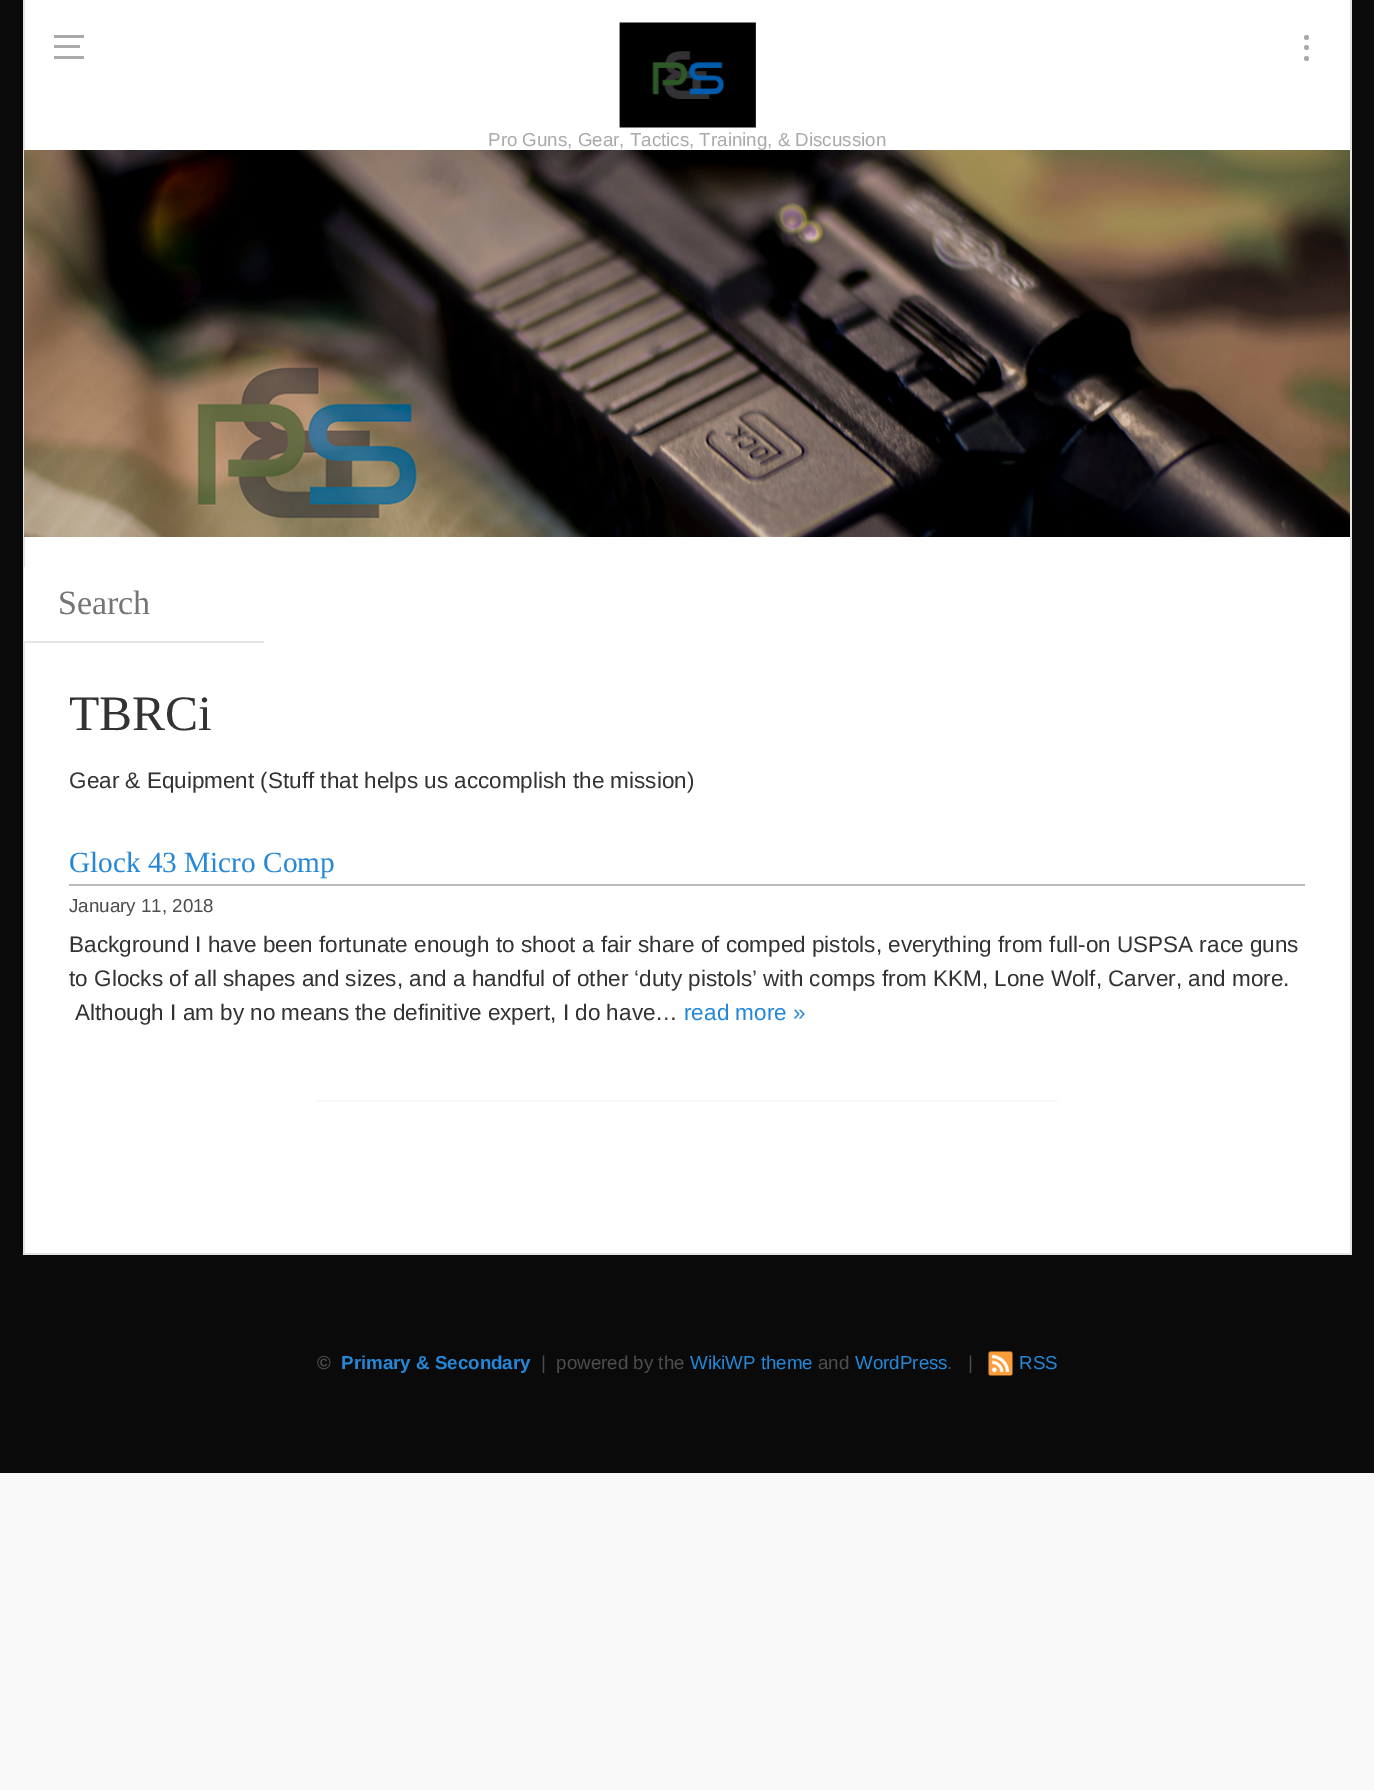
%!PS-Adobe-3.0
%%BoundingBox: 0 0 1374 1790
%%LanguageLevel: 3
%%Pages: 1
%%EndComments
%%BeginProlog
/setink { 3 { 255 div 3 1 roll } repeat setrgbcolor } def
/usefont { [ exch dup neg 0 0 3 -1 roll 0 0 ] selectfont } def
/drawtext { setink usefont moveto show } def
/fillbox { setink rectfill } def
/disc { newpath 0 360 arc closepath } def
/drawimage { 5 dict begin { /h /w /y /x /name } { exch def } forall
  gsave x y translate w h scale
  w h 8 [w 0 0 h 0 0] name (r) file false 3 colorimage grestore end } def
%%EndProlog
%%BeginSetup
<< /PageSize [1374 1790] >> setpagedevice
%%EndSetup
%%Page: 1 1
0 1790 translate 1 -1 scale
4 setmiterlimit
0 0 1374 1790 249 249 249 fillbox
0 0 1374 1473 10 10 10 fillbox
25 0 1325 150 255 255 255 fillbox
23 0 2 150 229 229 229 fillbox
(assets/img1.rgb) 619 22 137 106 drawimage
(Pro Guns, Gear, Tactics, Training, & Discussion) 488 146 /LiberationSans-Regular 18.75 170 170 170 drawtext
1350 0 2 1254 229 229 229 fillbox
23 150 1 387 229 229 229 fillbox
(assets/img2.rgb) 24 150 1326 387 drawimage
54 35 30 3 170 170 170 fillbox
54 45 26 3 170 170 170 fillbox
54 56 30 3 170 170 170 fillbox
1306.5 37.5 2.5 disc fill
1306.5 47.5 2.5 disc fill
1306.5 58.5 2.5 disc fill
25 537 1325 716 255 255 255 fillbox
23 537 2 105 229 229 229 fillbox
24 567 1 74 255 255 255 fillbox
23 1253 1329 2 229 229 229 fillbox
23 642 2 612 229 229 229 fillbox
24 641 240 2 229 229 229 fillbox
(Search) 58 614 /LiberationSerif-Regular 34 117 117 117 drawtext
(TBRCi) 69 730 /LiberationSerif-Regular 49.5 51 51 51 drawtext
(Gear & Equipment \(Stuff that helps us accomplish the mission\)) 69 788 /LiberationSans-Regular 22.5 51 51 51 drawtext
69 884 1236 2 187 187 187 fillbox
(Glock 43 Micro Comp) 69 872 /LiberationSerif-Regular 29.25 36 135 215 drawtext
(January 11, 2018) 69 912 /LiberationSans-Regular 18.75 77 77 77 drawtext
(Background I have been fortunate enough to shoot a fair share of comped pistols, everything from full-on USPSA race guns) 69 952 /LiberationSans-Regular 22.5 51 51 51 drawtext
(to Glocks of all shapes and sizes, and a handful of other ‘duty pistols’ with comps from KKM, Lone Wolf, Carver, and more.) 69 986 /LiberationSans-Regular 22.5 51 51 51 drawtext
(Although I am by no means the definitive expert, I do have…) 75 1020 /LiberationSans-Regular 22.5 51 51 51 drawtext
(read more ») 684 1020 /LiberationSans-Regular 22.5 36 135 215 drawtext
317 1100 741 2 249 249 249 fillbox
(©) 317 1369 /LiberationSans-Bold 18.75 77 77 77 drawtext
(Primary & Secondary) 341 1369 /LiberationSans-Bold 18.75 36 135 215 drawtext
(|  powered by the) 541 1369 /LiberationSans-Regular 18.75 77 77 77 drawtext
(WikiWP theme) 690 1369 /LiberationSans-Regular 18.75 36 135 215 drawtext
(and) 818 1369 /LiberationSans-Regular 18.75 77 77 77 drawtext
(WordPress) 855 1369 /LiberationSans-Regular 18.75 36 135 215 drawtext
(.   |) 947 1369 /LiberationSans-Regular 18.75 77 77 77 drawtext
(assets/img3.rgb) 988 1351 25 25 drawimage
(RSS) 1019 1369 /LiberationSans-Regular 18.75 36 135 215 drawtext
showpage
%%EOF
